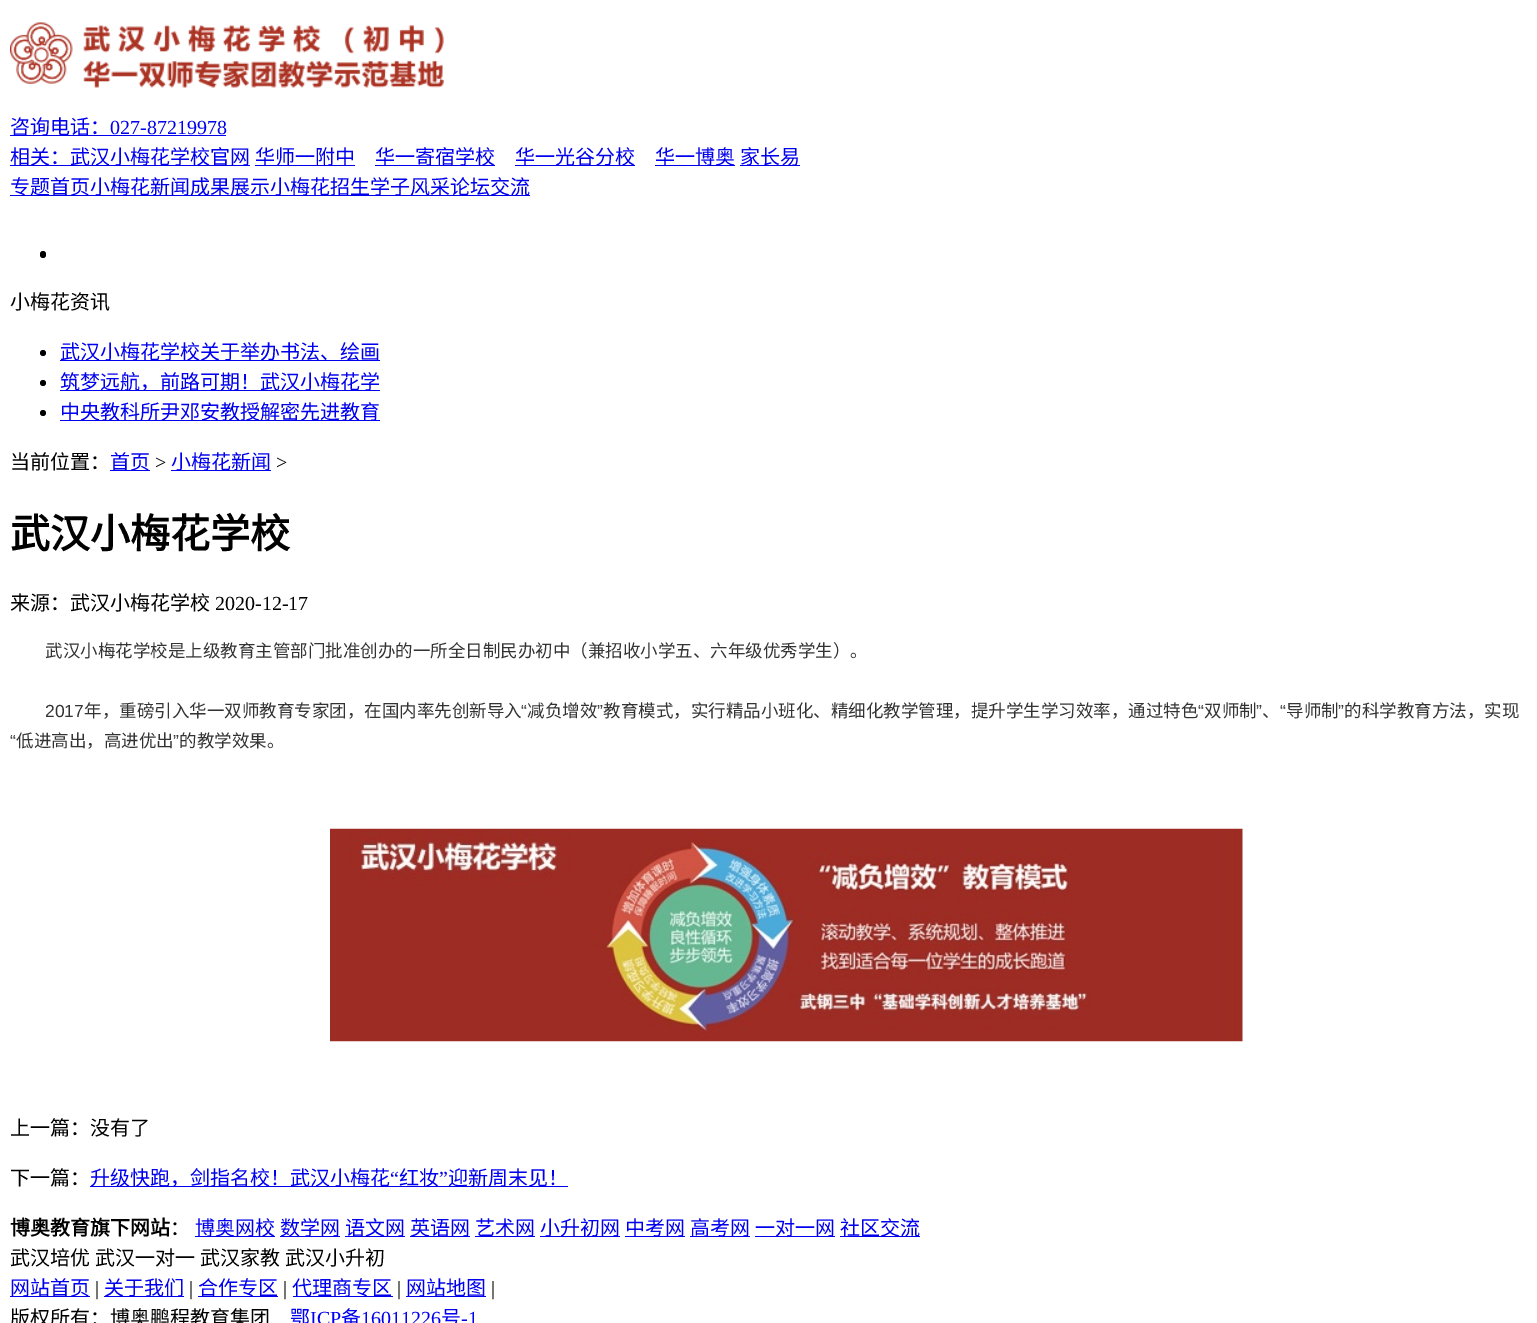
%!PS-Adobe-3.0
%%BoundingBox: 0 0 1537 1323
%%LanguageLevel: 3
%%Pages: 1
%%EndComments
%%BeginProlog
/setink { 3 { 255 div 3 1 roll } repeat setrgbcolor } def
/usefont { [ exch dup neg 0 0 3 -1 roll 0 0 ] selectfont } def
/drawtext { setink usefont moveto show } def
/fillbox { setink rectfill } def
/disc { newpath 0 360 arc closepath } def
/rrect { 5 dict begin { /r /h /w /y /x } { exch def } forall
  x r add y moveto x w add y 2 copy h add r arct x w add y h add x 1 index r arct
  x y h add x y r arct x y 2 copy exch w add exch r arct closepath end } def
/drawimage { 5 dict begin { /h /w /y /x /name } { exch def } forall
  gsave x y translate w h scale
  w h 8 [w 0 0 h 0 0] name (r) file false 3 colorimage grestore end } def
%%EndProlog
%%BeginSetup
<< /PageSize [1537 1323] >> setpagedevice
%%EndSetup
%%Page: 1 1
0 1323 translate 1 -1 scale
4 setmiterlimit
0 0 1537 1323 255 255 255 fillbox
(assets/img1.rgb) 10 22 434 66 drawimage
10 135 216 1 0 0 238 fillbox
(咨询电话：) 10 134 /NotoSansCJKSC-Regular 20 0 0 238 drawtext
(027-87219978) 110 134 /LiberationSerif-Regular 20 0 0 238 drawtext
10 165 240 1 0 0 238 fillbox
(相关：武汉小梅花学校官网) 10 164 /NotoSansCJKSC-Regular 20 0 0 238 drawtext
255 165 100 1 0 0 238 fillbox
(华师一附中) 255 164 /NotoSansCJKSC-Regular 20 0 0 238 drawtext
375 165 120 1 0 0 238 fillbox
(华一寄宿学校) 375 164 /NotoSansCJKSC-Regular 20 0 0 238 drawtext
515 165 120 1 0 0 238 fillbox
(华一光谷分校) 515 164 /NotoSansCJKSC-Regular 20 0 0 238 drawtext
655 165 80 1 0 0 238 fillbox
(华一博奥) 655 164 /NotoSansCJKSC-Regular 20 0 0 238 drawtext
740 165 60 1 0 0 238 fillbox
(家长易) 740 164 /NotoSansCJKSC-Regular 20 0 0 238 drawtext
10 195 520 1 0 0 238 fillbox
(专题首页小梅花新闻成果展示小梅花招生学子风采论坛交流) 10 194 /NotoSansCJKSC-Regular 20 0 0 238 drawtext
0 0 0 setink
40 251 6 7 3 rrect fill
(小梅花资讯) 10 309 /NotoSansCJKSC-Regular 20 0 0 0 drawtext
43 353 3 disc fill
60 360 320 1 0 0 238 fillbox
(武汉小梅花学校关于举办书法、绘画) 60 359 /NotoSansCJKSC-Regular 20 0 0 238 drawtext
0 0 0 setink
43 383 3 disc fill
60 390 320 1 0 0 238 fillbox
(筑梦远航，前路可期！武汉小梅花学) 60 389 /NotoSansCJKSC-Regular 20 0 0 238 drawtext
0 0 0 setink
43 413 3 disc fill
60 420 320 1 0 0 238 fillbox
(中央教科所尹邓安教授解密先进教育) 60 419 /NotoSansCJKSC-Regular 20 0 0 238 drawtext
(当前位置：) 10 469 /NotoSansCJKSC-Regular 20 0 0 0 drawtext
110 470 40 1 0 0 238 fillbox
(首页) 110 469 /NotoSansCJKSC-Regular 20 0 0 238 drawtext
(>) 155 469 /LiberationSerif-Regular 20 0 0 0 drawtext
171 470 100 1 0 0 238 fillbox
(小梅花新闻) 171 469 /NotoSansCJKSC-Regular 20 0 0 238 drawtext
(>) 276 469 /LiberationSerif-Regular 20 0 0 0 drawtext
(武汉小梅花学校) 10 548 /NotoSansCJKSC-Bold 40 0 0 0 drawtext
(来源：武汉小梅花学校) 10 610 /NotoSansCJKSC-Regular 20 0 0 0 drawtext
(2020-12-17) 215 610 /LiberationSerif-Regular 20 0 0 0 drawtext
(武汉小梅花学校是上级教育主管部门批准创办的一所全日制民办初中（兼招收小学五、六年级优秀学生）。) 45 657 /NotoSansCJKSC-Regular 17.5 51 51 51 drawtext
(2017) 45 717 /LiberationSans-Regular 17.5 51 51 51 drawtext
(年，重磅引入华一双师教育专家团，在国内率先创新导入) 84 717 /NotoSansCJKSC-Regular 17.5 51 51 51 drawtext
(“) 521 717 /LiberationSans-Regular 17.5 51 51 51 drawtext
(减负增效) 527 717 /NotoSansCJKSC-Regular 17.5 51 51 51 drawtext
(”) 597 717 /LiberationSans-Regular 17.5 51 51 51 drawtext
(教育模式，实行精品小班化、精细化教学管理，提升学生学习效率，通过特色) 603 717 /NotoSansCJKSC-Regular 17.5 51 51 51 drawtext
(“) 1198 717 /LiberationSans-Regular 17.5 51 51 51 drawtext
(双师制) 1204 717 /NotoSansCJKSC-Regular 17.5 51 51 51 drawtext
(”) 1256 717 /LiberationSans-Regular 17.5 51 51 51 drawtext
(“) 1280 717 /LiberationSans-Regular 17.5 51 51 51 drawtext
(导师制) 1286 717 /NotoSansCJKSC-Regular 17.5 51 51 51 drawtext
(”) 1338 717 /LiberationSans-Regular 17.5 51 51 51 drawtext
(的科学教育方法，实现) 1344 717 /NotoSansCJKSC-Regular 17.5 51 51 51 drawtext
(、) 1262 717 /NotoSansCJKSC-Regular 17.5 51 51 51 drawtext
(“) 10 747 /LiberationSans-Regular 17.5 51 51 51 drawtext
(低进高出，高进优出) 16 747 /NotoSansCJKSC-Regular 17.5 51 51 51 drawtext
(”) 173 747 /LiberationSans-Regular 17.5 51 51 51 drawtext
(的教学效果。) 179 747 /NotoSansCJKSC-Regular 17.5 51 51 51 drawtext
(assets/img2.rgb) 330 828 913 214 drawimage
(上一篇：没有了) 10 1135 /NotoSansCJKSC-Regular 20 0 0 0 drawtext
(下一篇：) 10 1185 /NotoSansCJKSC-Regular 20 0 0 0 drawtext
90 1186 478 1 0 0 238 fillbox
(升级快跑，剑指名校！武汉小梅花) 90 1185 /NotoSansCJKSC-Regular 20 0 0 238 drawtext
(“) 390 1185 /LiberationSerif-Regular 20 0 0 238 drawtext
(红妆) 399 1185 /NotoSansCJKSC-Regular 20 0 0 238 drawtext
(”) 439 1185 /LiberationSerif-Regular 20 0 0 238 drawtext
(迎新周末见！) 448 1185 /NotoSansCJKSC-Regular 20 0 0 238 drawtext
(博奥教育旗下网站) 10 1235 /NotoSansCJKSC-Bold 20 0 0 0 drawtext
(：) 170 1235 /NotoSansCJKSC-Regular 20 0 0 0 drawtext
195 1236 80 1 0 0 238 fillbox
(博奥网校) 195 1235 /NotoSansCJKSC-Regular 20 0 0 238 drawtext
280 1236 60 1 0 0 238 fillbox
(数学网) 280 1235 /NotoSansCJKSC-Regular 20 0 0 238 drawtext
345 1236 60 1 0 0 238 fillbox
(语文网) 345 1235 /NotoSansCJKSC-Regular 20 0 0 238 drawtext
410 1236 60 1 0 0 238 fillbox
(英语网) 410 1235 /NotoSansCJKSC-Regular 20 0 0 238 drawtext
475 1236 60 1 0 0 238 fillbox
(艺术网) 475 1235 /NotoSansCJKSC-Regular 20 0 0 238 drawtext
540 1236 80 1 0 0 238 fillbox
(小升初网) 540 1235 /NotoSansCJKSC-Regular 20 0 0 238 drawtext
625 1236 60 1 0 0 238 fillbox
(中考网) 625 1235 /NotoSansCJKSC-Regular 20 0 0 238 drawtext
690 1236 60 1 0 0 238 fillbox
(高考网) 690 1235 /NotoSansCJKSC-Regular 20 0 0 238 drawtext
755 1236 80 1 0 0 238 fillbox
(一对一网) 755 1235 /NotoSansCJKSC-Regular 20 0 0 238 drawtext
840 1236 80 1 0 0 238 fillbox
(社区交流) 840 1235 /NotoSansCJKSC-Regular 20 0 0 238 drawtext
0 0 0 setink
10 1265 moveto 0.5 0 32 (武汉培优 武汉一对一 武汉家教 武汉小升初) widthshow
10 1296 80 1 0 0 238 fillbox
(网站首页) 10 1295 /NotoSansCJKSC-Regular 20 0 0 238 drawtext
(|) 95 1295 /LiberationSerif-Regular 20 0 0 0 drawtext
104 1296 80 1 0 0 238 fillbox
(关于我们) 104 1295 /NotoSansCJKSC-Regular 20 0 0 238 drawtext
(|) 189 1295 /LiberationSerif-Regular 20 0 0 0 drawtext
198 1296 80 1 0 0 238 fillbox
(合作专区) 198 1295 /NotoSansCJKSC-Regular 20 0 0 238 drawtext
(|) 283 1295 /LiberationSerif-Regular 20 0 0 0 drawtext
293 1296 100 1 0 0 238 fillbox
(代理商专区) 292 1295 /NotoSansCJKSC-Regular 20 0 0 238 drawtext
(|) 397 1295 /LiberationSerif-Regular 20 0 0 0 drawtext
406 1296 80 1 0 0 238 fillbox
(网站地图) 406 1295 /NotoSansCJKSC-Regular 20 0 0 238 drawtext
(|) 491 1295 /LiberationSerif-Regular 20 0 0 0 drawtext
(版权所有：博奥鹏程教育集团) 10 1325 /NotoSansCJKSC-Regular 20 0 0 0 drawtext
(鄂) 290 1325 /NotoSansCJKSC-Regular 20 0 0 238 drawtext
(ICP) 310 1325 /LiberationSerif-Regular 20 0 0 238 drawtext
(备) 341 1325 /NotoSansCJKSC-Regular 20 0 0 238 drawtext
(16011226) 361 1325 /LiberationSerif-Regular 20 0 0 238 drawtext
(号) 441 1325 /NotoSansCJKSC-Regular 20 0 0 238 drawtext
(-1) 461 1325 /LiberationSerif-Regular 20 0 0 238 drawtext
showpage
%%EOF
